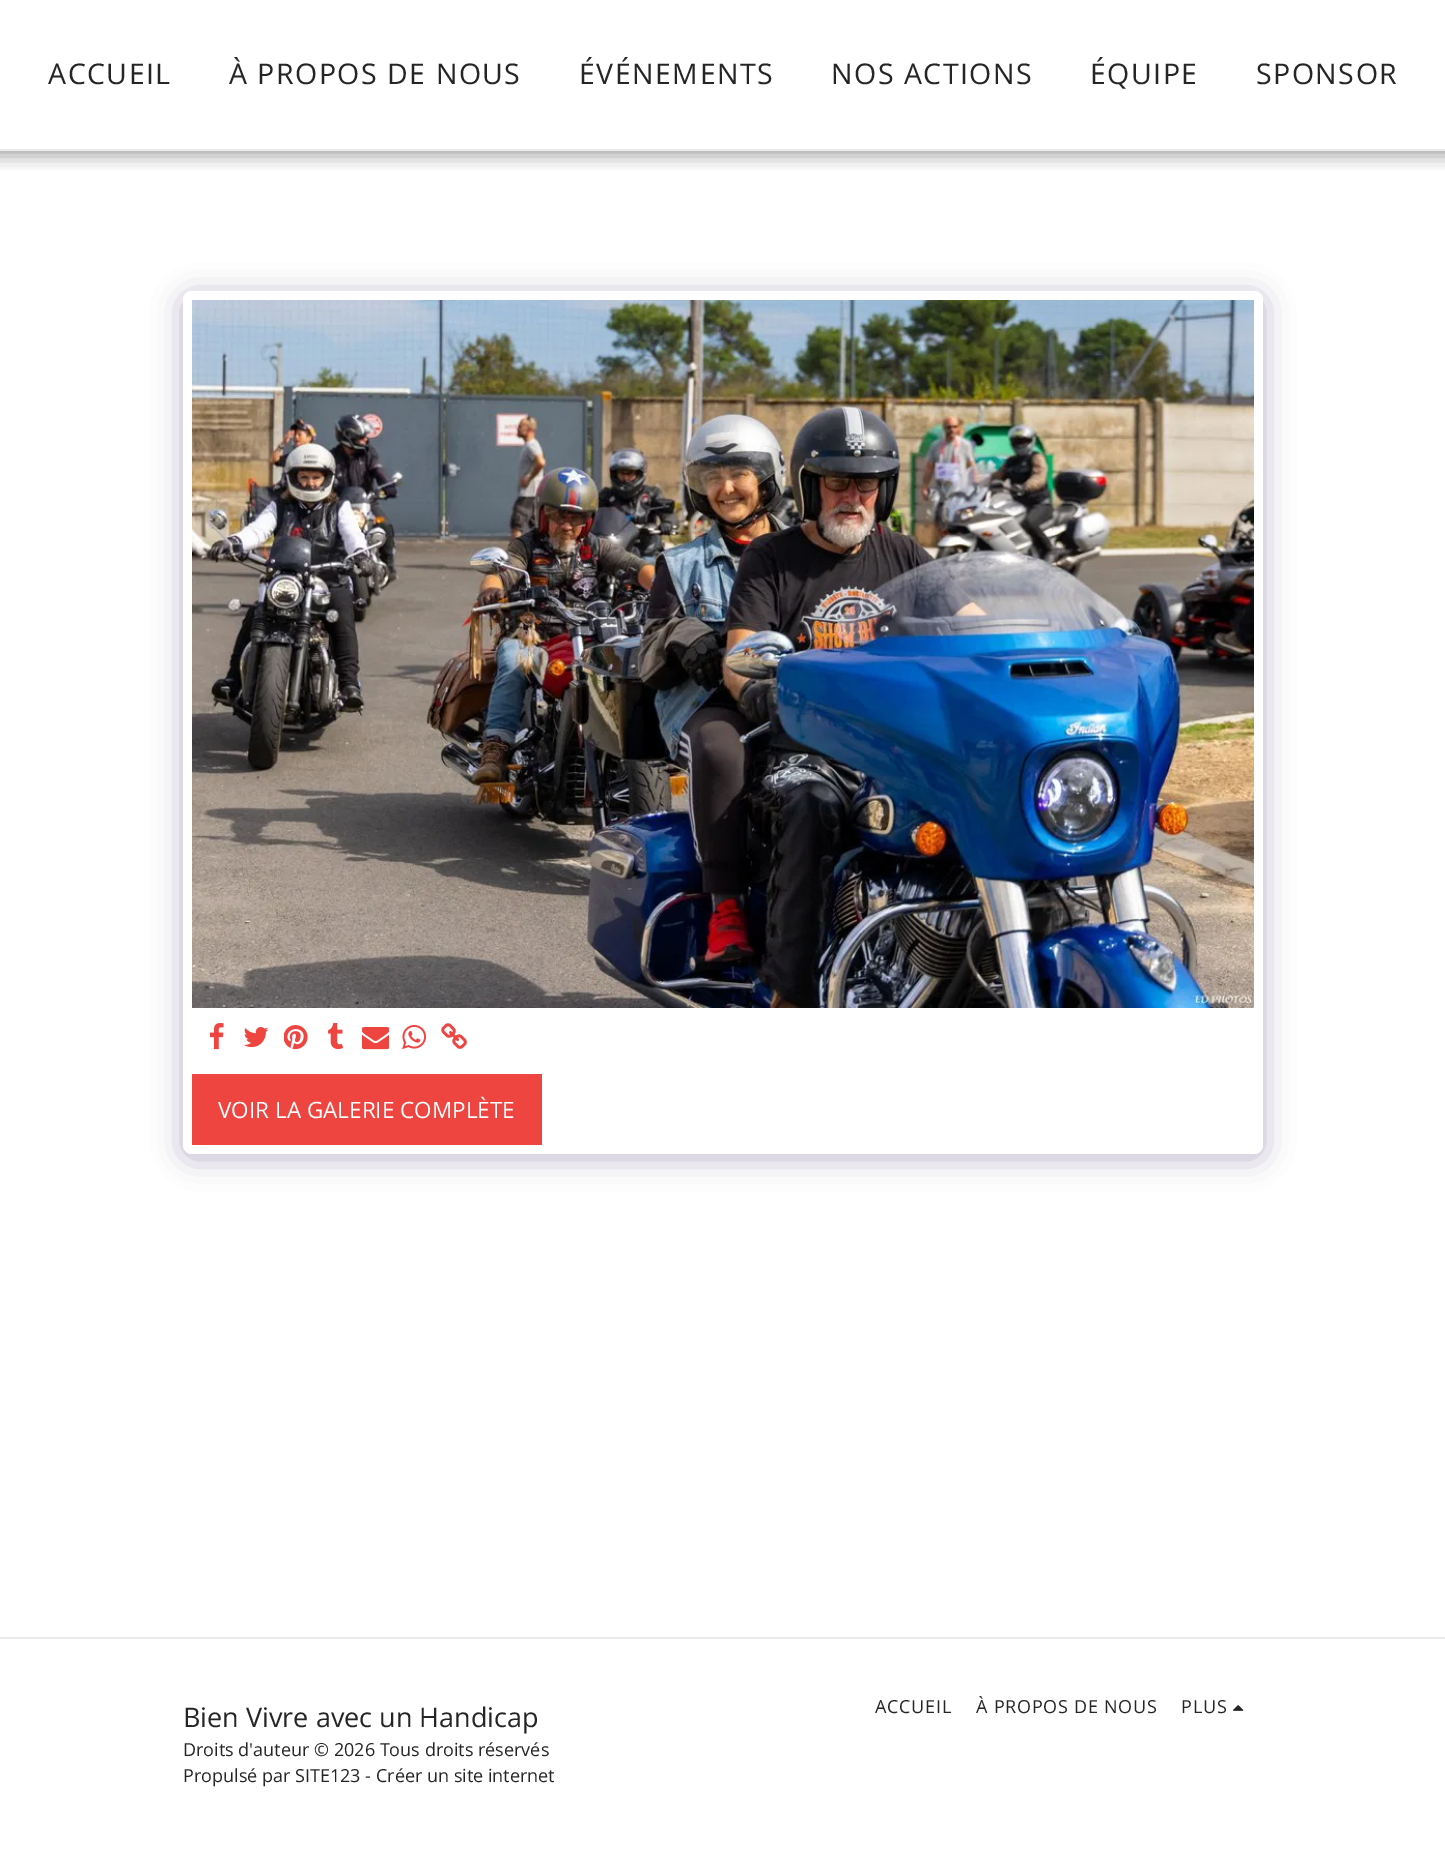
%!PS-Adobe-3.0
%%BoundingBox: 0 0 1445 1858
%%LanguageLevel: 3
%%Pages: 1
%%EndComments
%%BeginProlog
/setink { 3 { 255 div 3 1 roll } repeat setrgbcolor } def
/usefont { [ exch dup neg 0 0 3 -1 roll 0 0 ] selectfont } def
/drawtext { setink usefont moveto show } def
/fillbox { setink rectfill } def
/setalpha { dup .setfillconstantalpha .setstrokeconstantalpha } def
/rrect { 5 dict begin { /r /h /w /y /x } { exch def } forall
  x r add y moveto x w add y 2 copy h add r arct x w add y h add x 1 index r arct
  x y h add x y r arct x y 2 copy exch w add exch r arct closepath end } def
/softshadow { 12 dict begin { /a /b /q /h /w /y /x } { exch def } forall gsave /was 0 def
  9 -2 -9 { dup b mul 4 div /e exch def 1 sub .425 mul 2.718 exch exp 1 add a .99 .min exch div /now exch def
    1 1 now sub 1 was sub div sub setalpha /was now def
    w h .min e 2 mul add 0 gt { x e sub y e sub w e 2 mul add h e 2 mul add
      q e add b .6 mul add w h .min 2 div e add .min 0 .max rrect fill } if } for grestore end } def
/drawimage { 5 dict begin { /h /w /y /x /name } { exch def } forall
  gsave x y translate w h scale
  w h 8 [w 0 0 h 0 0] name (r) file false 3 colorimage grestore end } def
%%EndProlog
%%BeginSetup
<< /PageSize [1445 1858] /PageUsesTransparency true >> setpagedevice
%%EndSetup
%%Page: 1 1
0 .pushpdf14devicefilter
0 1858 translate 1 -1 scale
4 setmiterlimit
0 0 1445 1858 255 255 255 fillbox
gsave
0 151 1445 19 rectclip
0 0 0 setink
-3 0 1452 156 0 9 0.35 softshadow
grestore
0 149 1445 2 235 235 235 fillbox
/OpenSans-Regular 28.5 usefont
37 37 37 setink
48 84 moveto 1.5 0 (ACCUEIL) ashow
229 84 moveto 1.5 0 (À PROPOS DE NOUS) ashow
579 84 moveto 1.5 0 (ÉVÉNEMENTS) ashow
831 84 moveto 1.5 0 (NOS ACTIONS) ashow
1090 84 moveto 1.5 0 (ÉQUIPE) ashow
1256 84 moveto 1.5 0 (SPONSOR) ashow
77 63 122 setink
183 296 1080 862 9 15 0.4 softshadow
255 255 255 setink
183 291 1080 863 9 rrect fill
(assets/img1.rgb) 192 300 1062 708 drawimage
(assets/img2.rgb) 210 1023 14 27 drawimage
(assets/img3.rgb) 243 1027 26 21 drawimage
(assets/img4.rgb) 284 1025 24 25 drawimage
(assets/img5.rgb) 328 1023 15 27 drawimage
(assets/img6.rgb) 362 1027 27 23 drawimage
(assets/img7.rgb) 402 1024 24 26 drawimage
(assets/img8.rgb) 441 1023 26 26 drawimage
192 1074 350 71 238 69 64 fillbox
(VOIR LA GALERIE COMPLÈTE) 218 1118 /OpenSans-Regular 22.5 255 255 255 drawtext
0 1637 1445 2 235 235 235 fillbox
(Bien Vivre avec un Handicap) 183 1727 /OpenSans-Regular 27 37 37 37 drawtext
(Droits d'auteur © 2026 Tous droits réservés) 183 1756 /OpenSans-Regular 18 37 37 37 drawtext
(Propulsé par SITE123 - Créer un site internet) 183 1782 /OpenSans-Regular 18 37 37 37 drawtext
875 1713 moveto 0.75 0 (ACCUEIL) ashow
976 1713 moveto 0.75 0 (À PROPOS DE NOUS) ashow
1181 1713 moveto 0.75 0 (PLUS) ashow
(assets/img9.rgb) 1233 1705 11 6 drawimage
.poppdf14devicefilter showpage
%%EOF
